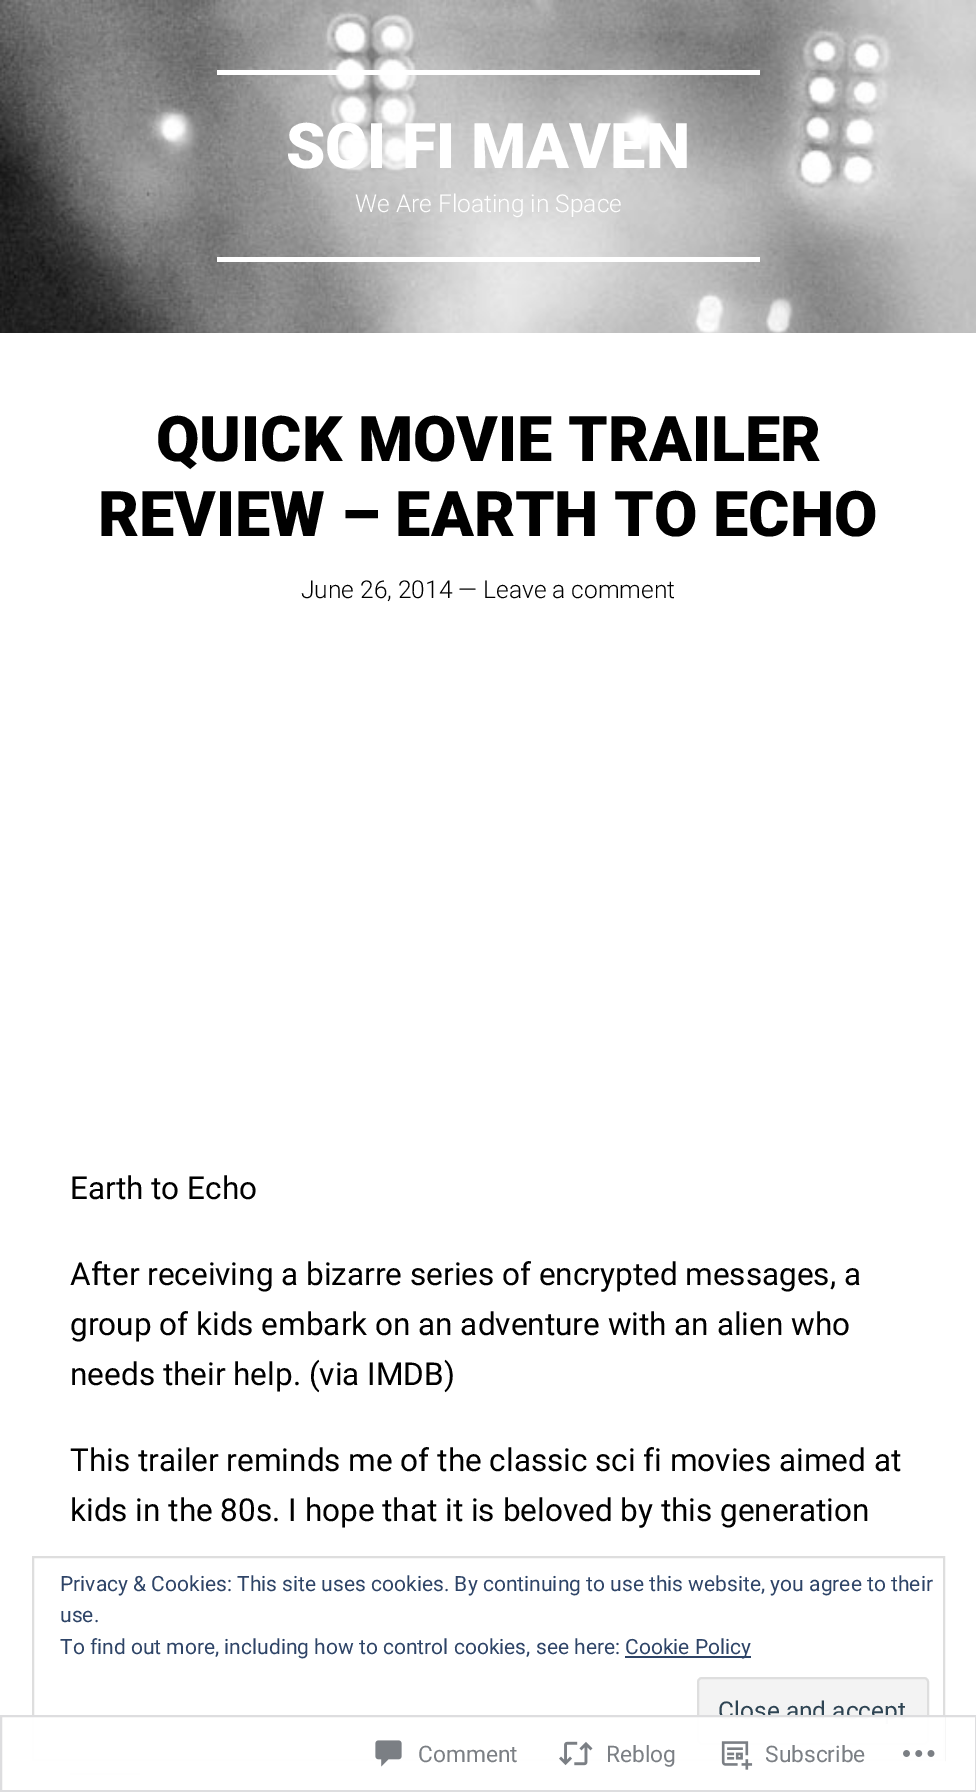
%!PS-Adobe-3.0
%%BoundingBox: 0 0 976 1792
%%LanguageLevel: 3
%%Pages: 1
%%EndComments
%%BeginProlog
/setink { 3 { 255 div 3 1 roll } repeat setrgbcolor } def
/usefont { [ exch dup neg 0 0 3 -1 roll 0 0 ] selectfont } def
/drawtext { setink usefont moveto show } def
/fillbox { setink rectfill } def
/setalpha { dup .setfillconstantalpha .setstrokeconstantalpha } def
/rrect { 5 dict begin { /r /h /w /y /x } { exch def } forall
  x r add y moveto x w add y 2 copy h add r arct x w add y h add x 1 index r arct
  x y h add x y r arct x y 2 copy exch w add exch r arct closepath end } def
/drawimage { 5 dict begin { /h /w /y /x /name } { exch def } forall
  gsave x y translate w h scale
  w h 8 [w 0 0 h 0 0] name (r) file false 3 colorimage grestore end } def
%%EndProlog
%%BeginSetup
<< /PageSize [976 1792] /PageUsesTransparency true >> setpagedevice
%%EndSetup
%%Page: 1 1
0 .pushpdf14devicefilter
0 1792 translate 1 -1 scale
4 setmiterlimit
0 0 976 1792 255 255 255 fillbox
(assets/img1.rgb) 0 0 976 333 drawimage
217 70 543 5 255 255 255 fillbox
217 257 543 5 255 255 255 fillbox
(SCI FI MAVEN) 286 168 /Roboto-Black 63 255 255 255 drawtext
(We Are Floating in Space) 355 212 /Roboto-Light 24.5 255 255 255 drawtext
(QUICK MOVIE TRAILER) 156 461 /Roboto-Black 63 0 0 0 drawtext
(REVIEW – EARTH TO ECHO) 98 536 /Roboto-Black 63 0 0 0 drawtext
(June 26, 2014 — Leave a comment) 301 598 /Roboto-Light 24.5 0 0 0 drawtext
(Earth to Echo) 70 1199 /Roboto-Regular 31.5 0 0 0 drawtext
(After receiving a bizarre series of encrypted messages, a) 70 1285 /Roboto-Regular 31.5 0 0 0 drawtext
(group of kids embark on an adventure with an alien who) 70 1335 /Roboto-Regular 31.5 0 0 0 drawtext
(needs their help. \(via IMDB\)) 70 1385 /Roboto-Regular 31.5 0 0 0 drawtext
(This trailer reminds me of the classic sci fi movies aimed at) 70 1471 /Roboto-Regular 31.5 0 0 0 drawtext
(kids in the 80s. I hope that it is beloved by this generation) 70 1521 /Roboto-Regular 31.5 0 0 0 drawtext
70 1773 70 2 221 221 221 fillbox
222 222 222 setink
2 setlinewidth
33 1557 911 203 rectstroke
(Privacy & Cookies: This site uses cookies. By continuing to use this website, you agree to their) 60 1591 /Roboto-Regular 21 46 68 103 drawtext
(use.) 60 1622 /Roboto-Regular 21 46 68 103 drawtext
(To find out more, including how to control cookies, see here:) 60 1654 /Roboto-Regular 21 46 68 103 drawtext
625 1656 126 2 46 68 103 fillbox
(Cookie Policy) 625 1654 /Roboto-Regular 21 46 68 103 drawtext
243 243 243 setink
698 1678 230 66 4 rrect gsave fill grestore
222 222 222 setink
stroke
(Close and accept) 718 1719 /Roboto-Regular 24.5 46 68 83 drawtext
0.98 setalpha
32 1715 913 60 255 255 255 fillbox
220 220 222 setink
1 1716 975 75 rectstroke
1 setalpha
(assets/img2.rgb) 375 1740 27 27 drawimage
(Comment) 418 1762 /Roboto-Regular 22.75 123 127 132 drawtext
(assets/img3.rgb) 559 1741 34 25 drawimage
(Reblog) 606 1762 /Roboto-Regular 22.75 123 127 132 drawtext
(assets/img4.rgb) 721 1741 32 29 drawimage
(Subscribe) 765 1762 /Roboto-Regular 22.75 123 127 132 drawtext
(assets/img5.rgb) 903 1750 32 7 drawimage
.poppdf14devicefilter showpage
%%EOF
